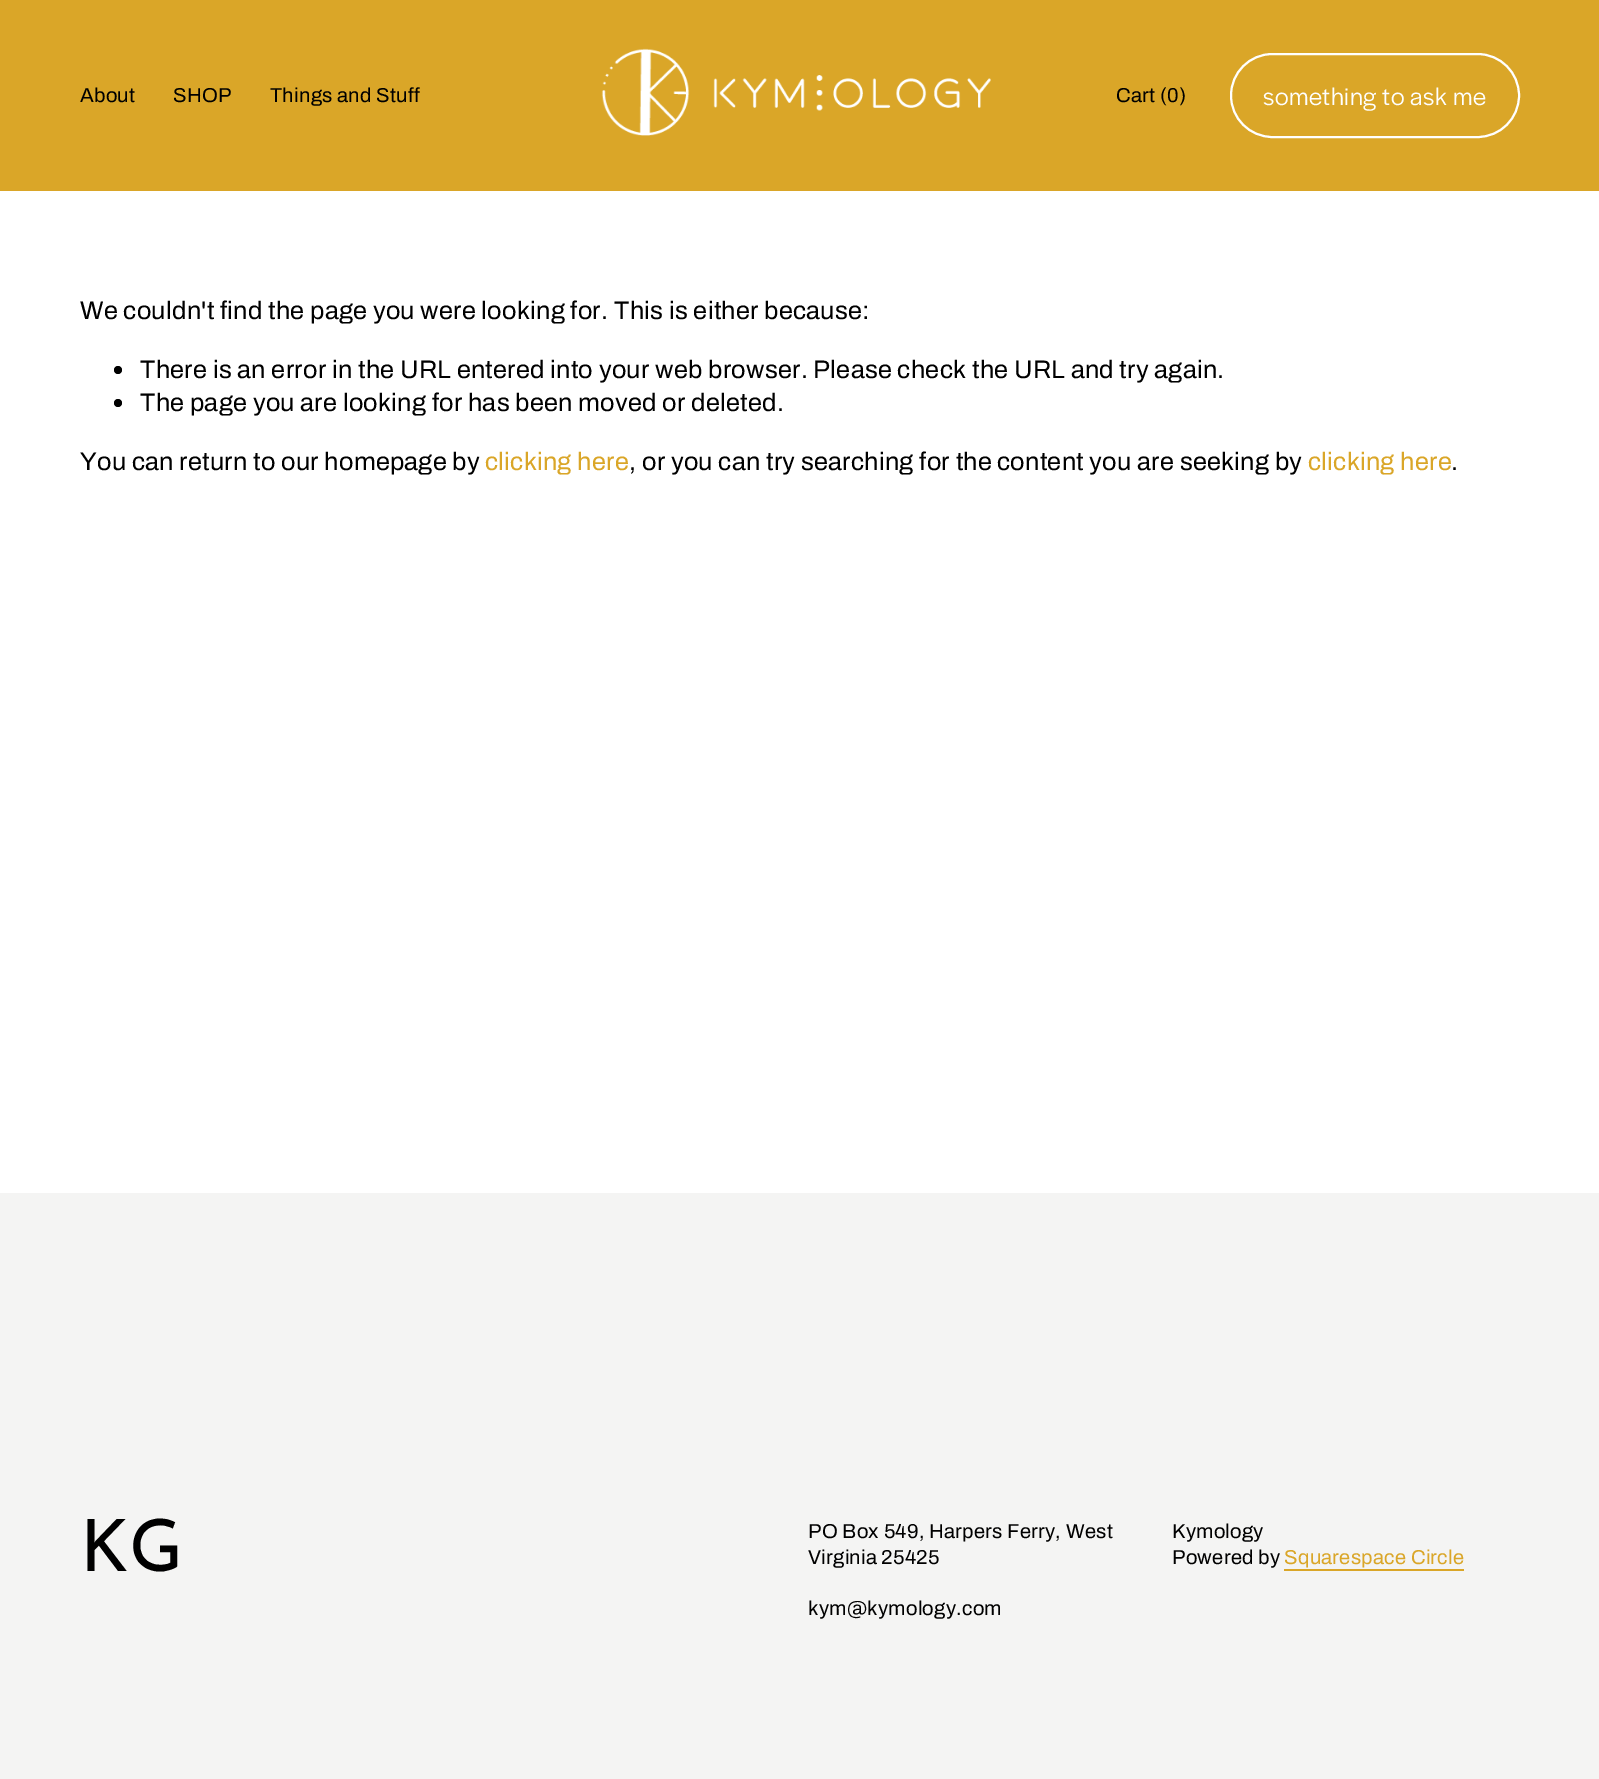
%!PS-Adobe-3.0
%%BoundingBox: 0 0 1599 1779
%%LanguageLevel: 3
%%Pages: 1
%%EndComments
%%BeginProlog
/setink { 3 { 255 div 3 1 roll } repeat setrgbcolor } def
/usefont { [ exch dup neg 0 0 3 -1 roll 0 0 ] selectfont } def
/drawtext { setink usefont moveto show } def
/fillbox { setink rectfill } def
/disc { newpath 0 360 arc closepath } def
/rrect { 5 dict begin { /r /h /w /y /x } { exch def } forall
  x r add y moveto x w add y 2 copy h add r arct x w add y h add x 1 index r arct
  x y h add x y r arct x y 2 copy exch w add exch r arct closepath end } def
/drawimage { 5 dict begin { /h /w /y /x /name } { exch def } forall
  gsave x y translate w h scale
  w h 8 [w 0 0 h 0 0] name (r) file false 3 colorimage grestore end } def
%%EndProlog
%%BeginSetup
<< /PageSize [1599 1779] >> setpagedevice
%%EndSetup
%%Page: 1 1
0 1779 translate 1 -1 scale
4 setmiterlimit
0 0 1599 1779 255 255 255 fillbox
0 0 1599 191 218 166 40 fillbox
/Archivo-Regular 20.2 usefont
0 0 0 setink
80 102 moveto 0.25 0 (About) ashow
173 102 moveto 0.25 0 (SHOP) ashow
270 102 moveto 0.25 0 (Things and Stuff) ashow
(assets/img1.rgb) 601 48 390 88 drawimage
1116 102 moveto 0.25 0 (Cart \(0\)) ashow
255 255 255 setink
2 setlinewidth
1231 54 288 83 41.5 rrect stroke
/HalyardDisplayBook-Regular 26 usefont
1263 105 moveto 0.5 0 (something to ask me) ashow
/Archivo-Regular 25.35 usefont
0 0 0 setink
80 319 moveto 0.25 0 (We couldn't find the page you were looking for. This is either because:) ashow
118 370 4 disc fill
140 378 moveto 0.25 0 (There is an error in the URL entered into your web browser. Please check the URL and try again.) ashow
118 403 4 disc fill
140 411 moveto 0.25 0 (The page you are looking for has been moved or deleted.) ashow
80 470 moveto 0.25 0 (You can return to our homepage by) ashow
218 166 40 setink
485 470 moveto 0.25 0 (clicking here) ashow
0 0 0 setink
629 470 moveto 0.25 0 (, or you can try searching for the) ashow
997 470 moveto 0.25 0 (content you are seeking by) ashow
218 166 40 setink
1308 470 moveto 0.25 0 (clicking here) ashow
0 0 0 setink
1451 470 moveto 0.25 0 (.) ashow
0 1193 1599 586 244 244 243 fillbox
(KG) 80 1571 /JosefinSans-Regular 72 0 0 0 drawtext
/Archivo-Regular 20.2 usefont
808 1538 moveto 0.25 0 (PO Box 549, Harpers Ferry, West) ashow
808 1564 moveto 0.25 0 (Virginia 25425) ashow
808 1615 moveto 0.25 0 (kym@kymology.com) ashow
1172 1538 moveto 0.25 0 (Kymology) ashow
1172 1564 moveto 0.25 0 (Powered by) ashow
218 166 40 setink
1284 1564 moveto 0.25 0 (Squarespace Circle) ashow
1284 1569 180 2 218 166 40 fillbox
showpage
%%EOF
